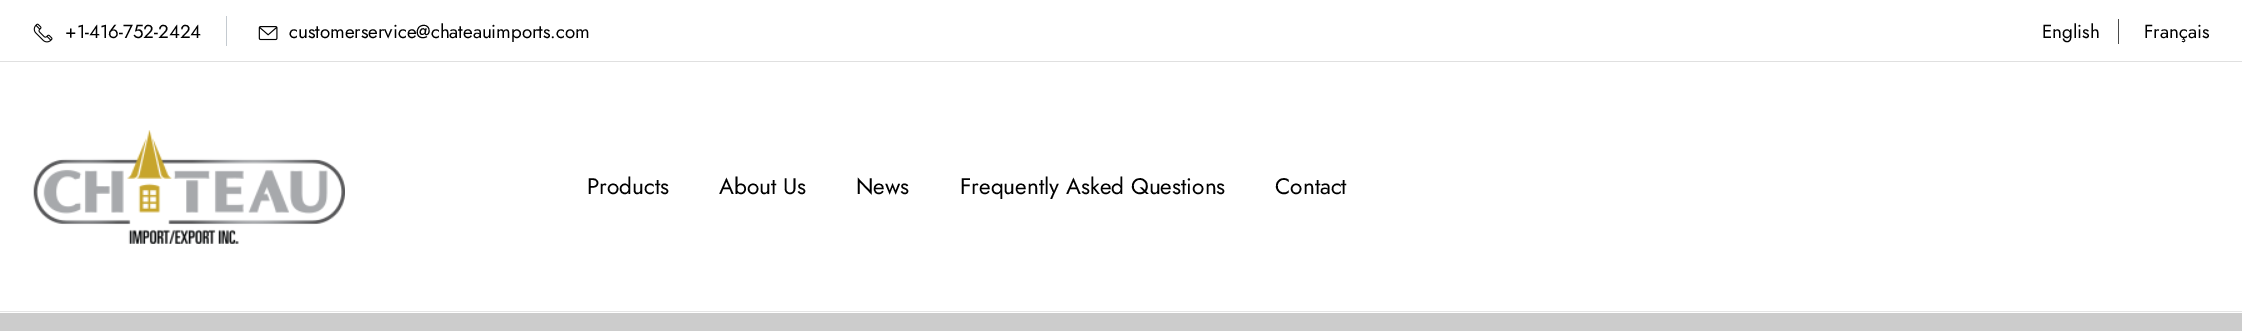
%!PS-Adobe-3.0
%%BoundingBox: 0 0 2242 331
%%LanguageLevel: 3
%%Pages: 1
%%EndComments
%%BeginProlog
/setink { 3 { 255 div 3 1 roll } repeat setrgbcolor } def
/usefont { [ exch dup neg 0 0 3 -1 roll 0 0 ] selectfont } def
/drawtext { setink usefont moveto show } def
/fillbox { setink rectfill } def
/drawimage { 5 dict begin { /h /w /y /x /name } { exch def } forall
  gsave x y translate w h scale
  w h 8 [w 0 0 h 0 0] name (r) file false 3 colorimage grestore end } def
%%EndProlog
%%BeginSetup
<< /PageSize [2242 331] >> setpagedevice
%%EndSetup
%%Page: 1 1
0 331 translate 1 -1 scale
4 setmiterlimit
0 0 2242 331 255 255 255 fillbox
0 61 2242 1 224 224 224 fillbox
226 16 1 30 196 202 208 fillbox
(assets/img1.rgb) 33 23 20 20 drawimage
(+1-416-752-2424) 65 38 /Jost-Regular 18.75 0 0 0 drawtext
(assets/img2.rgb) 258 26 20 15 drawimage
(customerservice@chateauimports.com) 289 38 /Jost-Regular 18.75 0 0 0 drawtext
2118 19 1 25 75 75 75 fillbox
(English) 2042 38 /Jost-Regular 18.75 0 0 0 drawtext
(Français) 2144 38 /Jost-Regular 18.75 0 0 0 drawtext
0 311 2242 1 229 229 229 fillbox
(assets/img3.rgb) 33 130 312 114 drawimage
(Products) 587 194 /Jost-Regular 22.5 0 0 0 drawtext
(About Us) 719 194 /Jost-Regular 22.5 0 0 0 drawtext
(News) 856 194 /Jost-Regular 22.5 0 0 0 drawtext
(Frequently Asked Questions) 960 194 /Jost-Regular 22.5 0 0 0 drawtext
(Contact) 1275 194 /Jost-Regular 22.5 0 0 0 drawtext
0 313 2242 18 204 204 204 fillbox
showpage
%%EOF
